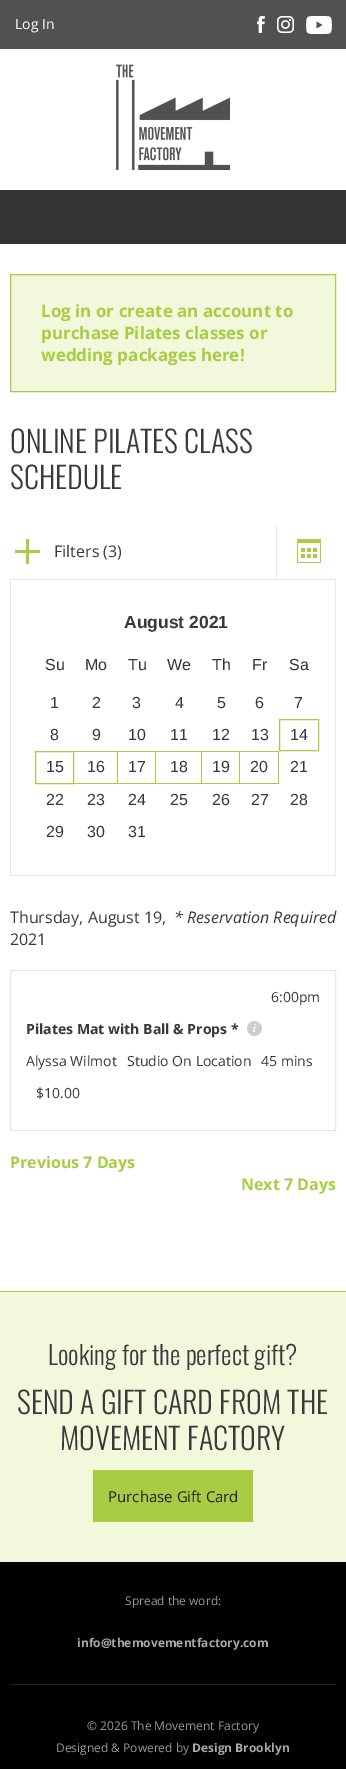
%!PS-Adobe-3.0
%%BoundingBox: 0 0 346 1769
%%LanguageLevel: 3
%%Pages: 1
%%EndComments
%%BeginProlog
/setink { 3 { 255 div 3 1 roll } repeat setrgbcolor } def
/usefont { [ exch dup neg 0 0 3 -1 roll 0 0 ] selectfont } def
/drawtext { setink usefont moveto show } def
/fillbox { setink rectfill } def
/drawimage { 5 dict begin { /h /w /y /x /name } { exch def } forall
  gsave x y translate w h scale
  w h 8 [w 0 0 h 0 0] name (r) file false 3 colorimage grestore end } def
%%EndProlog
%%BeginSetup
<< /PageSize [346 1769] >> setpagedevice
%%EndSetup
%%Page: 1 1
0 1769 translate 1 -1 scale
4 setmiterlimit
0 0 346 1769 255 255 255 fillbox
0 0 346 49 81 81 83 fillbox
(Log In) 15 29 /OpenSans-Regular 14 255 255 255 drawtext
(assets/img1.rgb) 257 16 8 17 drawimage
(assets/img2.rgb) 277 16 17 17 drawimage
(assets/img3.rgb) 306 16 26 18 drawimage
(assets/img4.rgb) 116 64 114 106 drawimage
0 190 346 54 51 51 51 fillbox
241 248 220 setink
10.5 274.5 moveto 335.5 274.5 lineto 335.5 391.5 lineto 10.5 391.5 lineto closepath gsave fill grestore
169 204 69 setink
stroke
(Log in or create an account to) 41 317 /OpenSans-Bold 17 169 204 69 drawtext
(purchase Pilates classes or) 41 339 /OpenSans-Bold 17 169 204 69 drawtext
(wedding packages here!) 41 361 /OpenSans-Bold 17 169 204 69 drawtext
(ONLINE PILATES CLASS) 10 453 /Oswald-Light 30 57 57 57 drawtext
(SCHEDULE) 10 489 /Oswald-Light 30 57 57 57 drawtext
10 579 326 1 228 232 235 fillbox
(assets/img5.rgb) 15 539 25 25 drawimage
(Filters \(3\)) 54 557 /OpenSans-Regular 16 57 57 57 drawtext
276 524 1 55 228 232 235 fillbox
(assets/img6.rgb) 297 539 24 24 drawimage
335 580 1 296 228 232 235 fillbox
10 875 326 1 228 232 235 fillbox
10 580 1 296 228 232 235 fillbox
(August 2021) 124 628 /LiberationSans-Bold 17.5 57 57 57 drawtext
(Su) 45 670 /LiberationSans-Regular 16 51 51 51 drawtext
(Mo) 85 670 /LiberationSans-Regular 16 51 51 51 drawtext
(Tu) 128 670 /LiberationSans-Regular 16 51 51 51 drawtext
(We) 167 670 /LiberationSans-Regular 16 51 51 51 drawtext
(Th) 212 670 /LiberationSans-Regular 16 51 51 51 drawtext
(Fr) 252 670 /LiberationSans-Regular 16 51 51 51 drawtext
(Sa) 289 670 /LiberationSans-Regular 16 51 51 51 drawtext
(1) 50 708 /LiberationSans-Regular 16 57 57 57 drawtext
(2) 92 708 /LiberationSans-Regular 16 57 57 57 drawtext
(3) 132 708 /LiberationSans-Regular 16 57 57 57 drawtext
(4) 175 708 /LiberationSans-Regular 16 57 57 57 drawtext
(5) 217 708 /LiberationSans-Regular 16 57 57 57 drawtext
(6) 255 708 /LiberationSans-Regular 16 57 57 57 drawtext
(7) 294 708 /LiberationSans-Regular 16 57 57 57 drawtext
(8) 50 740 /LiberationSans-Regular 16 57 57 57 drawtext
(9) 92 740 /LiberationSans-Regular 16 57 57 57 drawtext
(10) 128 740 /LiberationSans-Regular 16 57 57 57 drawtext
(11) 170 740 /LiberationSans-Regular 16 57 57 57 drawtext
(12) 212 740 /LiberationSans-Regular 16 57 57 57 drawtext
(13) 251 740 /LiberationSans-Regular 16 57 57 57 drawtext
169 204 69 setink
279.5 719.5 39 31 rectstroke
(14) 290 740 /LiberationSans-Regular 16 57 57 57 drawtext
169 204 69 setink
35.5 751.5 38 32 rectstroke
(15) 46 772 /LiberationSans-Regular 16 57 57 57 drawtext
74 751 205 1 169 204 69 fillbox
117 751 1 33 169 204 69 fillbox
74 783 44 1 169 204 69 fillbox
(16) 87 772 /LiberationSans-Regular 16 57 57 57 drawtext
155 751 1 33 169 204 69 fillbox
118 783 38 1 169 204 69 fillbox
(17) 128 772 /LiberationSans-Regular 16 57 57 57 drawtext
201 751 1 33 169 204 69 fillbox
156 783 46 1 169 204 69 fillbox
(18) 170 772 /LiberationSans-Regular 16 57 57 57 drawtext
239 751 1 33 169 204 69 fillbox
202 783 38 1 169 204 69 fillbox
(19) 212 772 /LiberationSans-Regular 16 57 57 57 drawtext
278 751 1 33 169 204 69 fillbox
240 783 39 1 169 204 69 fillbox
(20) 250 772 /LiberationSans-Regular 16 57 57 57 drawtext
(21) 290 772 /LiberationSans-Regular 16 57 57 57 drawtext
(22) 46 805 /LiberationSans-Regular 16 57 57 57 drawtext
(23) 87 805 /LiberationSans-Regular 16 57 57 57 drawtext
(24) 128 805 /LiberationSans-Regular 16 57 57 57 drawtext
(25) 170 805 /LiberationSans-Regular 16 57 57 57 drawtext
(26) 212 805 /LiberationSans-Regular 16 57 57 57 drawtext
(27) 251 805 /LiberationSans-Regular 16 57 57 57 drawtext
(28) 290 805 /LiberationSans-Regular 16 57 57 57 drawtext
(29) 46 837 /LiberationSans-Regular 16 57 57 57 drawtext
(30) 87 837 /LiberationSans-Regular 16 57 57 57 drawtext
(31) 128 837 /LiberationSans-Regular 16 57 57 57 drawtext
(Thursday, August 19,) 10 923 /OpenSans-Regular 16 57 57 57 drawtext
(* Reservation Required) 174 923 /OpenSans-Italic 16 57 57 57 drawtext
(2021) 10 945 /OpenSans-Regular 16 57 57 57 drawtext
228 232 235 setink
10.5 970.5 325 160 rectstroke
(6:00pm) 271 1002 /OpenSans-Regular 14 57 57 57 drawtext
(Pilates Mat with Ball & Props *) 26 1034 /OpenSans-Bold 14 57 57 57 drawtext
(assets/img7.rgb) 247 1021 15 15 drawimage
(Alyssa Wilmot) 26 1066 /OpenSans-Regular 14 57 57 57 drawtext
(Studio On Location) 127 1066 /OpenSans-Regular 14 57 57 57 drawtext
(45 mins) 261 1066 /OpenSans-Regular 14 57 57 57 drawtext
($10.00) 36 1098 /OpenSans-Regular 14 57 57 57 drawtext
(Previous 7 Days) 10 1168 /OpenSans-Bold 16 169 204 69 drawtext
(Next 7 Days) 241 1190 /OpenSans-Bold 16 169 204 69 drawtext
0 1562 346 207 0 0 0 fillbox
0 1292 346 270 241 248 220 fillbox
0 1291 346 1 169 204 69 fillbox
(Looking for the perfect gift?) 48 1365 /Oswald-Light 26 57 57 57 drawtext
(SEND A GIFT CARD FROM THE) 17 1414 /Oswald-Light 30 57 57 57 drawtext
(MOVEMENT FACTORY) 60 1450 /Oswald-Light 30 57 57 57 drawtext
93 1470 160 52 169 204 69 fillbox
(Purchase Gift Card) 108 1502 /OpenSans-Regular 15 34 34 34 drawtext
(Spread the word:) 125 1605 /OpenSans-Regular 12 153 153 153 drawtext
(info@themovementfactory.com) 77 1647 /OpenSans-Bold 12 170 170 170 drawtext
10 1684 326 1 34 34 34 fillbox
(© 2026 The Movement Factory) 87 1730 /OpenSans-Regular 12 153 153 153 drawtext
(Designed & Powered by) 56 1752 /OpenSans-Regular 12 153 153 153 drawtext
(Design Brooklyn) 192 1752 /OpenSans-Bold 12 170 170 170 drawtext
showpage
%%EOF
